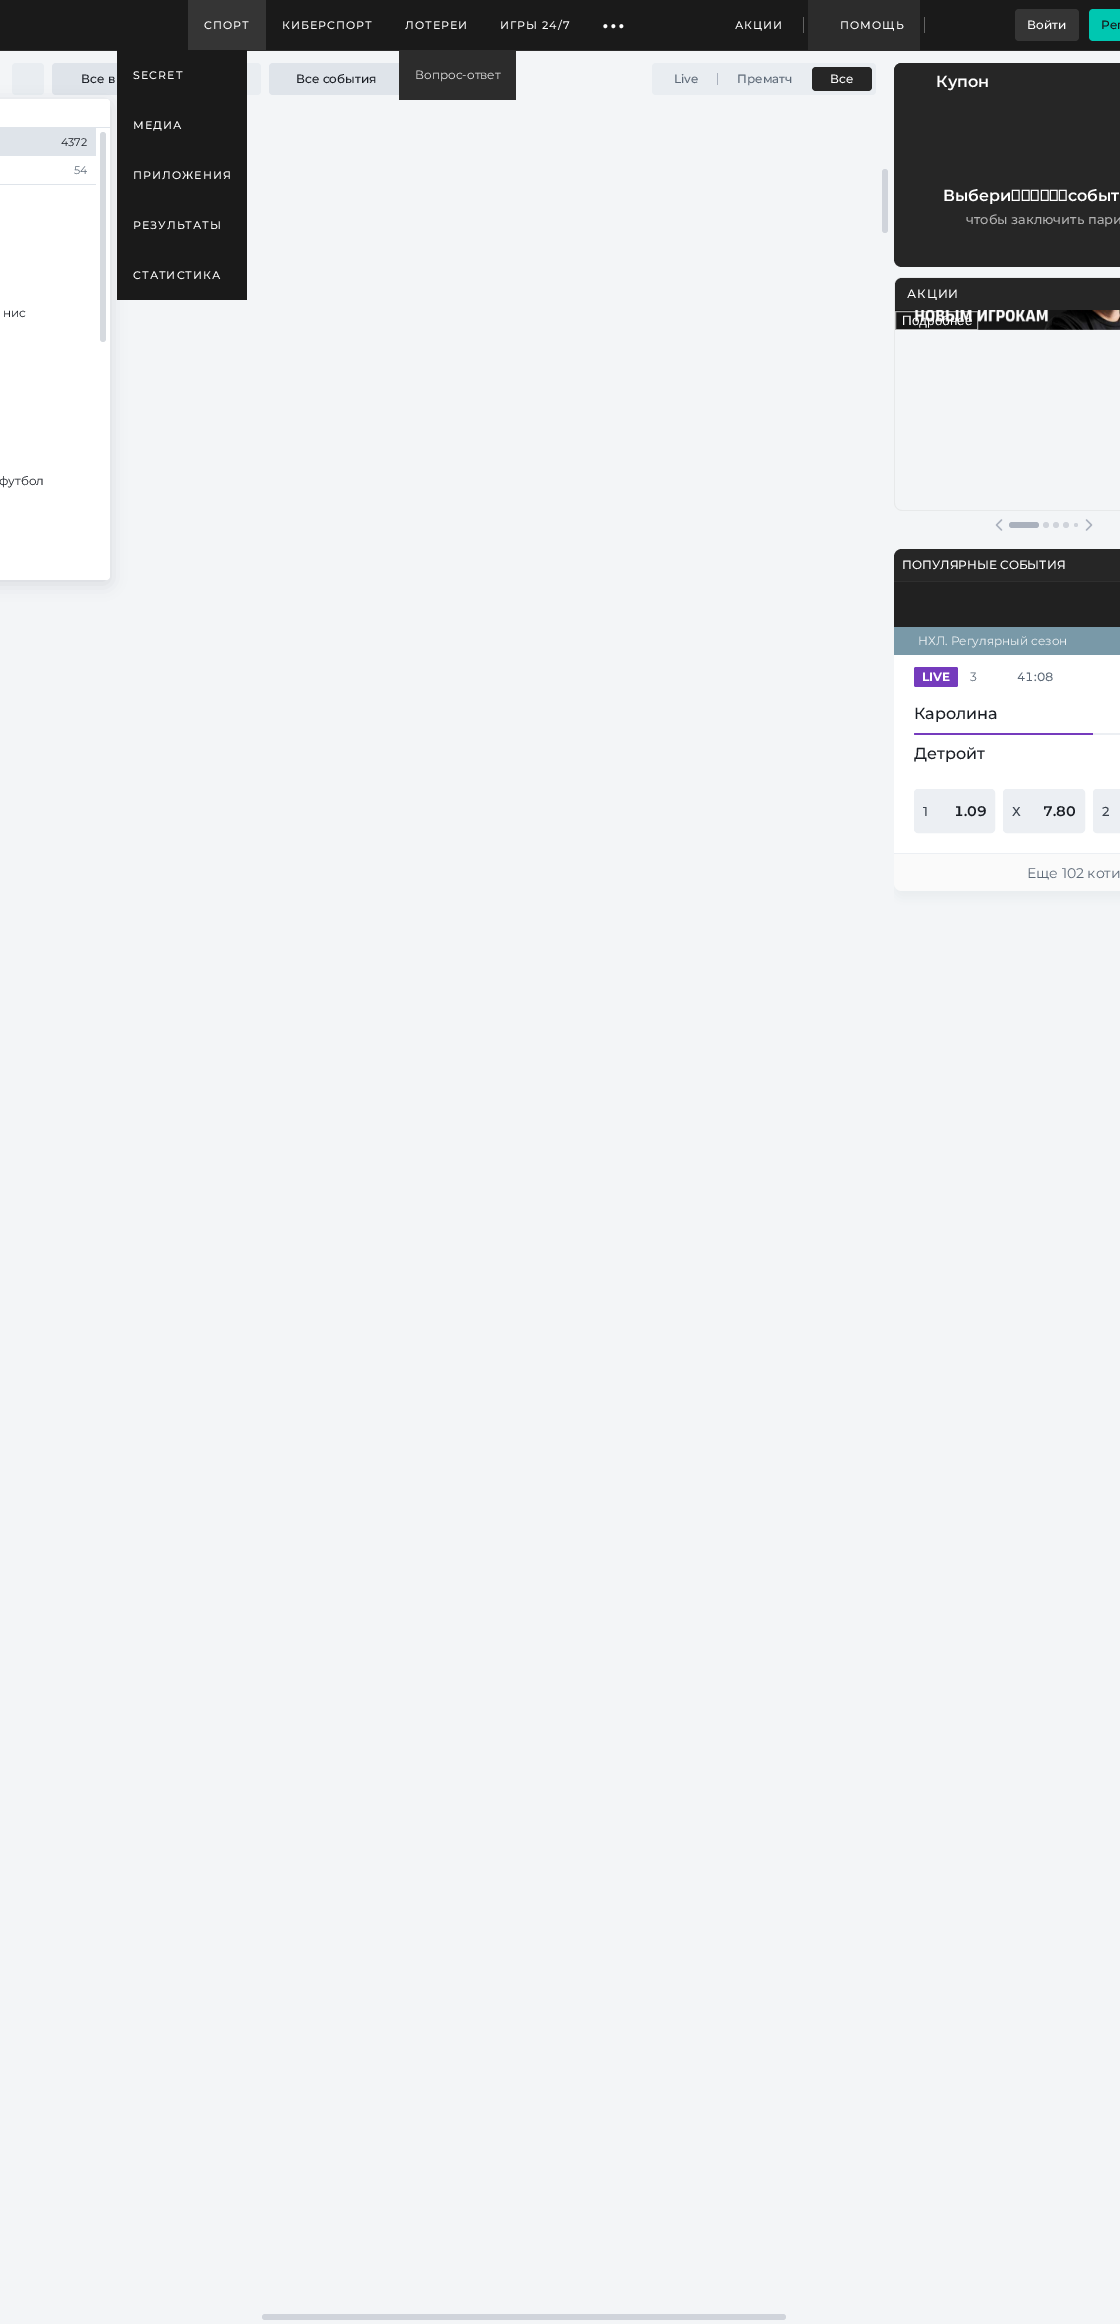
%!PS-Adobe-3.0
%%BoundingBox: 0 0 1120 2324
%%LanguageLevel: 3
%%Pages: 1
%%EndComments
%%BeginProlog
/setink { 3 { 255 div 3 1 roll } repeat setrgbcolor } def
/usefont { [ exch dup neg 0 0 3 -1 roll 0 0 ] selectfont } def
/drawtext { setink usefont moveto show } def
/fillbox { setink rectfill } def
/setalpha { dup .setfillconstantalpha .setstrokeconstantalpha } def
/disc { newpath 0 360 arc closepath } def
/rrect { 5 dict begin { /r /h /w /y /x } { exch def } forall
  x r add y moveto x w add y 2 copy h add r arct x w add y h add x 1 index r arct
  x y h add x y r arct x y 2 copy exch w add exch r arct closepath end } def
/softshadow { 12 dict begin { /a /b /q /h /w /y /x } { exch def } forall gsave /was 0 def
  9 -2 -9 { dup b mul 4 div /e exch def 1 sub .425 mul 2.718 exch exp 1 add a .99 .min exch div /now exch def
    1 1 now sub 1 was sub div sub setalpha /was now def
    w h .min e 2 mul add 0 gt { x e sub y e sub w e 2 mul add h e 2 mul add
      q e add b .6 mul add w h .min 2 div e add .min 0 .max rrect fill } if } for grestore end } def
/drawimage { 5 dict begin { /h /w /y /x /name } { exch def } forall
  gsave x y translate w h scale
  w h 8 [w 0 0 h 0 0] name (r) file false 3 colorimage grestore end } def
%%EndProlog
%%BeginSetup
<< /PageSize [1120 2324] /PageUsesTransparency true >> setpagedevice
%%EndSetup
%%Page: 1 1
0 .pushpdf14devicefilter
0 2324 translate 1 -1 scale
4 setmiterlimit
0 0 1120 2324 243 245 247 fillbox
0 0 1120 50 26 26 26 fillbox
0 50 1120 1 44 44 44 fillbox
188 0 78 50 53 53 53 fillbox
/Montserrat-Medium 11 usefont
255 255 255 setink
204 29 moveto 1 0 (СПОРТ) ashow
282 29 moveto 1 0 (КИБЕРСПОРТ) ashow
405 29 moveto 1 0 (ЛОТЕРЕИ) ashow
500 29 moveto 1 0 (ИГРЫ 24/7) ashow
/Montserrat-Medium 30 usefont
602 28 moveto 1 0 (...) ashow
/Montserrat-Medium 11 usefont
735 29 moveto 1 0 (АКЦИИ) ashow
803 17 1 16 99 99 99 fillbox
808 0 112 50 44 44 44 fillbox
255 255 255 setink
840 29 moveto 1 0 (ПОМОЩЬ) ashow
924 17 1 16 99 99 99 fillbox
53 53 53 setink
1015 9 64 32 4 rrect fill
(Войти) 1027 29 /Montserrat-Medium 12 255 255 255 drawtext
0 199 177 setink
1093 9 moveto 1120 9 lineto 1120 41 lineto 1093 41 lineto 1091 41 1089 39 1089 37 curveto 1089 13 lineto 1089 11 1091 9 1093 9 curveto closepath fill
(Рег) 1101 29 /Montserrat-Medium 12 22 22 22 drawtext
233 237 241 setink
12 63 32 32 4 rrect fill
223 228 234 setink
52 63 129 32 4 rrect fill
(Все в) 81 83 /Montserrat-Medium 12 26 30 37 drawtext
233 237 241 setink
229 63 32 32 4 rrect fill
223 228 234 setink
269 63 140 32 4 rrect fill
(Все события) 296 83 /Montserrat-Medium 12 26 30 37 drawtext
233 237 241 setink
652 63 224 32 4 rrect fill
(Live) 674 83 /Montserrat-Medium 12 94 106 120 drawtext
170 177 189 setink
717 73 1 12 0.5 rrect fill
(Прематч) 737 83 /Montserrat-Medium 12 94 106 120 drawtext
38 38 38 setink
812 67 60 24 4 rrect fill
(Все) 830 83 /Montserrat-Medium 12 255 255 255 drawtext
208 212 219 setink
882 169 6 64 3 rrect fill
38 38 38 setink
902 278 moveto 1120 278 lineto 1120 310 lineto 895 310 lineto 895 285 lineto 895 281 898 278 902 278 curveto closepath fill
0.12 setalpha
142 142 142 setink
902 277 moveto 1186 277 lineto 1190 277 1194 281 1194 285 curveto 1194 310 lineto 894 310 lineto 894 285 lineto 894 281 898 277 902 277 curveto closepath 902 278 moveto 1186 278 lineto 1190 278 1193 281 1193 285 curveto 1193 310 lineto 895 310 lineto 895 285 lineto 895 281 898 278 902 278 curveto closepath eofill
gsave
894 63 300 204 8 rrect clip newpath
1 setalpha
217 221 227 setink
894 70 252 204 8 6 0.4 softshadow
grestore
1 setalpha
38 38 38 setink
902 63 moveto 1120 63 lineto 1120 267 lineto 902 267 lineto 897.5 267 894 263.5 894 259 curveto 894 71 lineto 894 66.5 897.5 63 902 63 curveto closepath fill
902 63 moveto 1120 63 lineto 1120 101 lineto 894 101 lineto 894 71 lineto 894 66.5 897.5 63 902 63 curveto closepath fill
(Купон) 936 87 /Montserrat-SemiBold 16 255 255 255 drawtext
(Выбери исход событ) 943 201 /Montserrat-SemiBold 16 255 255 255 drawtext
(чтобы заключить пари) 966 224 /Montserrat-Medium 13 177 177 177 drawtext
/Montserrat-Medium 12 usefont
255 255 255 setink
907 298 moveto 1 0 (АКЦИИ) ashow
231 233 234 setink
894 310 moveto 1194 310 lineto 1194 503 lineto 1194 507 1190 511 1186 511 curveto 902 511 lineto 898 511 894 507 894 503 curveto closepath 895 310 moveto 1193 310 lineto 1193 503 lineto 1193 507 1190 510 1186 510 curveto 902 510 lineto 898 510 895 507 895 503 curveto closepath eofill
(assets/img1.rgb) 895 310 225 20 drawimage
0.6 setalpha
255 255 255 setink
895.5 311.5 82 18 rectstroke
1 setalpha
(Подробнее) 902 325 /LiberationSans-Regular 13.5 255 255 255 drawtext
(assets/img2.rgb) 995 519 8 12 drawimage
170 177 189 setink
1009 522 30 6 3 rrect fill
207 211 218 setink
1046 525 3 disc fill
1056 525 3 disc fill
1066 525 3 disc fill
1076 525 2 disc fill
(assets/img3.rgb) 1085 519 8 12 drawimage
gsave
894 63 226 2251 rectclip
217 221 227 setink
894 556 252 342 8 6 0.4 softshadow
grestore
38 38 38 setink
902 549 moveto 1120 549 lineto 1120 582 lineto 894 582 lineto 894 557 lineto 894 552.5 897.5 549 902 549 curveto closepath fill
894 581 226 1 47 47 47 fillbox
(ПОПУЛЯРНЫЕ СОБЫТИЯ) 902 569 /Montserrat-Medium 12 255 255 255 drawtext
894 582 226 45 33 33 33 fillbox
894 627 226 28 121 153 168 fillbox
(НХЛ. Регулярный сезон) 918 645 /Montserrat-Regular 12 239 243 245 drawtext
894 655 226 198 255 255 255 fillbox
117 59 189 setink
914 667 44 20 2 rrect fill
(LIVE) 922 681 /Montserrat-Bold 12 255 255 255 drawtext
(3) 970 681 /Montserrat-Regular 12 94 106 120 drawtext
(41:08) 1017 681 /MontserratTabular-Medium 12 94 106 120 drawtext
(Каролина) 914 719 /Montserrat-Medium 16 26 30 37 drawtext
117 59 189 setink
915 733 moveto 1093 733 lineto 1093 735 lineto 915 735 lineto 914.5 735 914 734.5 914 734 curveto 914 733.5 914.5 733 915 733 curveto closepath fill
1093 733 27 2 236 239 243 fillbox
(Детройт) 914 759 /Montserrat-Medium 16 26 30 37 drawtext
236 239 243 setink
914.5 789.5 80 43 3.5 rrect gsave fill grestore
stroke
(1) 923 816 /Montserrat-Medium 13 58 66 77 drawtext
(1.09) 954 816 /MontserratTabular-SemiBold 14 26 30 37 drawtext
236 239 243 setink
1003.5 789.5 81 43 3.5 rrect gsave fill grestore
stroke
(Х) 1012 816 /Montserrat-Medium 13 58 66 77 drawtext
(7.80) 1043 816 /MontserratTabular-SemiBold 14 26 30 37 drawtext
236 239 243 setink
1097 789 moveto 1120 789 lineto 1120 833 lineto 1097 833 lineto 1095 833 1093 831 1093 829 curveto 1093 793 lineto 1093 791 1095 789 1097 789 curveto closepath fill
1093.5 789.5 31 43 3.5 rrect stroke
(2) 1102 816 /Montserrat-Medium 13 58 66 77 drawtext
250 250 250 setink
894 853 moveto 1120 853 lineto 1120 891 lineto 902 891 lineto 897.5 891 894 887.5 894 883 curveto closepath fill
894 853 226 1 236 239 243 fillbox
(Еще 102 коти) 1027 878 /Montserrat-Regular 14 94 106 120 drawtext
208 212 219 setink
262 2314 524 6 3 rrect fill
117 50 130 250 26 26 26 fillbox
16 24 40 setink
-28 103 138 481 4 8 0.12 softshadow
255 255 255 setink
-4 99 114 481 4 rrect fill
0 127 110 1 223 228 234 fillbox
255 255 255 setink
-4 99 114 28 4 rrect fill
0 128 96 28 223 228 234 fillbox
(4372) 61 146 /Montserrat-Regular 11 26 30 37 drawtext
(54) 74 174 /Montserrat-Regular 11 94 106 120 drawtext
0 184 96 1 223 228 234 fillbox
(нис) 3 317 /Montserrat-Regular 12 26 30 37 drawtext
(футбол) -1 485 /Montserrat-Regular 12 26 30 37 drawtext
214 218 223 setink
100 132 6 210 3 rrect fill
/Montserrat-Medium 11 usefont
255 255 255 setink
133 79 moveto 1 0 (SECRET) ashow
133 129 moveto 1 0 (МЕДИА) ashow
133 179 moveto 1 0 (ПРИЛОЖЕНИЯ) ashow
133 229 moveto 1 0 (РЕЗУЛЬТАТЫ) ashow
133 279 moveto 1 0 (СТАТИСТИКА) ashow
399 51 117 49 44 44 44 fillbox
(Вопрос-ответ) 415 79 /Montserrat-Regular 12 230 230 230 drawtext
.poppdf14devicefilter showpage
%%EOF
